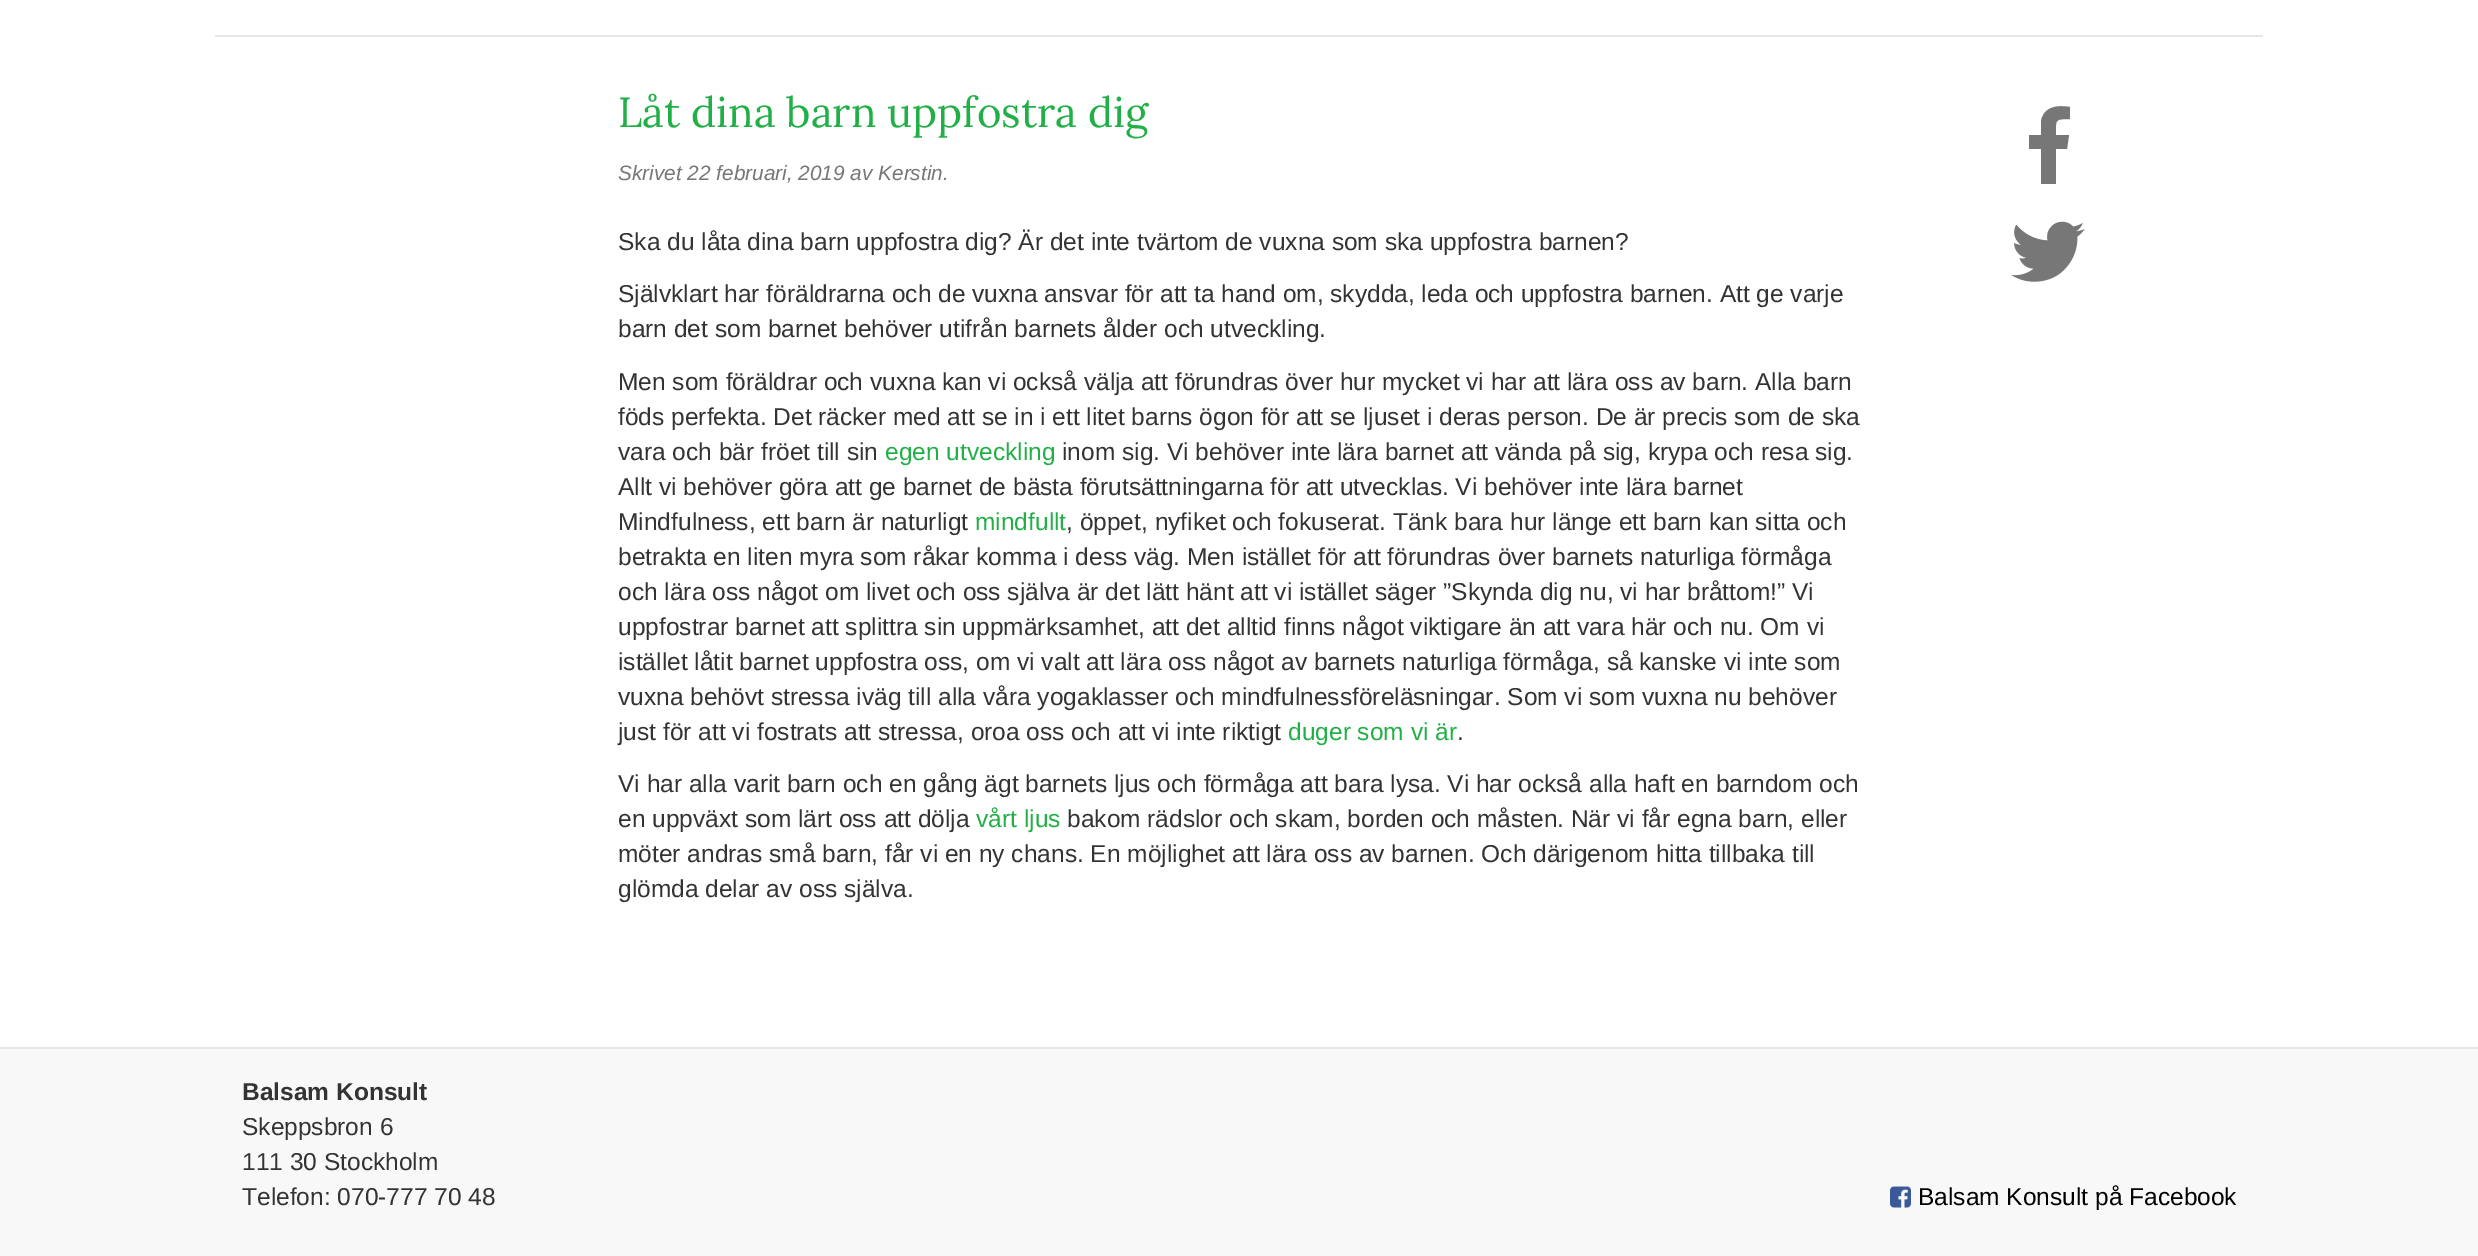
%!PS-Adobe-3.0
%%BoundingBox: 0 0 2478 1256
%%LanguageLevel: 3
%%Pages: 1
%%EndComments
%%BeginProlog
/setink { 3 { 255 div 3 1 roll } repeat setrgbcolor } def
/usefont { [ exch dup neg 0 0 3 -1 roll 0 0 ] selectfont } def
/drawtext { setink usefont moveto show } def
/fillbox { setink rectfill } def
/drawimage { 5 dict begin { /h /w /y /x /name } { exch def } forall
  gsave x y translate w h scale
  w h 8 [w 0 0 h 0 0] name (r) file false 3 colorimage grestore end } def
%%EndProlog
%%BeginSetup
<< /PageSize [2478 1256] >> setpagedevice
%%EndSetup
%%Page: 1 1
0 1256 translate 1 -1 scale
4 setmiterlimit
0 0 2478 1256 255 255 255 fillbox
215 35 2048 2 231 231 231 fillbox
(Låt dina barn uppfostra dig) 618 127 /Lora-Regular 42 33 176 71 drawtext
(Skrivet 22 februari, 2019 av Kerstin.) 618 180 /LiberationSans-Italic 20.8 119 119 119 drawtext
(Ska du låta dina barn uppfostra dig? Är det inte tvärtom de vuxna som ska uppfostra barnen?) 618 250 /LiberationSans-Regular 24.5 51 51 51 drawtext
(Självklart har föräldrarna och de vuxna ansvar för att ta hand om, skydda, leda och uppfostra barnen. Att ge varje) 618 302 /LiberationSans-Regular 24.5 51 51 51 drawtext
(barn det som barnet behöver utifrån barnets ålder och utveckling.) 618 337 /LiberationSans-Regular 24.5 51 51 51 drawtext
(Men som föräldrar och vuxna kan vi också välja att förundras över hur mycket vi har att lära oss av barn. Alla barn) 618 390 /LiberationSans-Regular 24.5 51 51 51 drawtext
(föds perfekta. Det räcker med att se in i ett litet barns ögon för att se ljuset i deras person. De är precis som de ska) 618 425 /LiberationSans-Regular 24.5 51 51 51 drawtext
(vara och bär fröet till sin) 618 460 /LiberationSans-Regular 24.5 51 51 51 drawtext
(egen utveckling) 885 460 /LiberationSans-Regular 24.5 33 176 71 drawtext
(inom sig. Vi behöver inte lära barnet att vända på sig, krypa och resa sig.) 1062 460 /LiberationSans-Regular 24.5 51 51 51 drawtext
(Allt vi behöver göra att ge barnet de bästa förutsättningarna för att utvecklas. Vi behöver inte lära barnet) 618 495 /LiberationSans-Regular 24.5 51 51 51 drawtext
(Mindfulness, ett barn är naturligt) 618 530 /LiberationSans-Regular 24.5 51 51 51 drawtext
(mindfullt) 975 530 /LiberationSans-Regular 24.5 33 176 71 drawtext
(, öppet, nyfiket och fokuserat. Tänk bara hur länge ett barn kan sitta och) 1066 530 /LiberationSans-Regular 24.5 51 51 51 drawtext
(betrakta en liten myra som råkar komma i dess väg. Men istället för att förundras över barnets naturliga förmåga) 618 565 /LiberationSans-Regular 24.5 51 51 51 drawtext
(och lära oss något om livet och oss själva är det lätt hänt att vi istället säger ”Skynda dig nu, vi har bråttom!” Vi) 618 600 /LiberationSans-Regular 24.5 51 51 51 drawtext
(uppfostrar barnet att splittra sin uppmärksamhet, att det alltid finns något viktigare än att vara här och nu. Om vi) 618 635 /LiberationSans-Regular 24.5 51 51 51 drawtext
(istället låtit barnet uppfostra oss, om vi valt att lära oss något av barnets naturliga förmåga, så kanske vi inte som) 618 670 /LiberationSans-Regular 24.5 51 51 51 drawtext
(vuxna behövt stressa iväg till alla våra yogaklasser och mindfulnessföreläsningar. Som vi som vuxna nu behöver) 618 705 /LiberationSans-Regular 24.5 51 51 51 drawtext
(just för att vi fostrats att stressa, oroa oss och att vi inte riktigt) 618 740 /LiberationSans-Regular 24.5 51 51 51 drawtext
(duger som vi är) 1288 740 /LiberationSans-Regular 24.5 33 176 71 drawtext
(.) 1457 740 /LiberationSans-Regular 24.5 51 51 51 drawtext
(Vi har alla varit barn och en gång ägt barnets ljus och förmåga att bara lysa. Vi har också alla haft en barndom och) 618 792 /LiberationSans-Regular 24.5 51 51 51 drawtext
(en uppväxt som lärt oss att dölja) 618 827 /LiberationSans-Regular 24.5 51 51 51 drawtext
(vårt ljus) 976 827 /LiberationSans-Regular 24.5 33 176 71 drawtext
(bakom rädslor och skam, borden och måsten. När vi får egna barn, eller) 1067 827 /LiberationSans-Regular 24.5 51 51 51 drawtext
(möter andras små barn, får vi en ny chans. En möjlighet att lära oss av barnen. Och därigenom hitta tillbaka till) 618 862 /LiberationSans-Regular 24.5 51 51 51 drawtext
(glömda delar av oss själva.) 618 897 /LiberationSans-Regular 24.5 51 51 51 drawtext
119 119 119 setink
2070 107 moveto 2070 119 lineto 2054 119 2056 120 2056 135 curveto 2069 135 lineto 2067 149 lineto 2056 149 lineto 2056 184 lineto 2041 184 lineto 2041 149 lineto 2029 149 lineto 2029 135 lineto 2041 135 lineto 2041 121 lineto 2044 106 2058 105 2070 107 curveto closepath fill
(assets/img1.rgb) 2011 221 74 61 drawimage
0 1049 2478 207 248 248 248 fillbox
0 1047 2478 2 231 231 231 fillbox
(Balsam Konsult) 242 1100 /LiberationSans-Bold 24.5 51 51 51 drawtext
(Skeppsbron 6) 242 1135 /LiberationSans-Regular 24.5 51 51 51 drawtext
(111 30 Stockholm) 242 1170 /LiberationSans-Regular 24.5 51 51 51 drawtext
(Telefon: 070-777 70 48) 242 1205 /LiberationSans-Regular 24.5 51 51 51 drawtext
(assets/img2.rgb) 1890 1186 21 22 drawimage
(Balsam Konsult på Facebook) 1918 1205 /LiberationSans-Regular 24.5 0 0 0 drawtext
showpage
%%EOF
